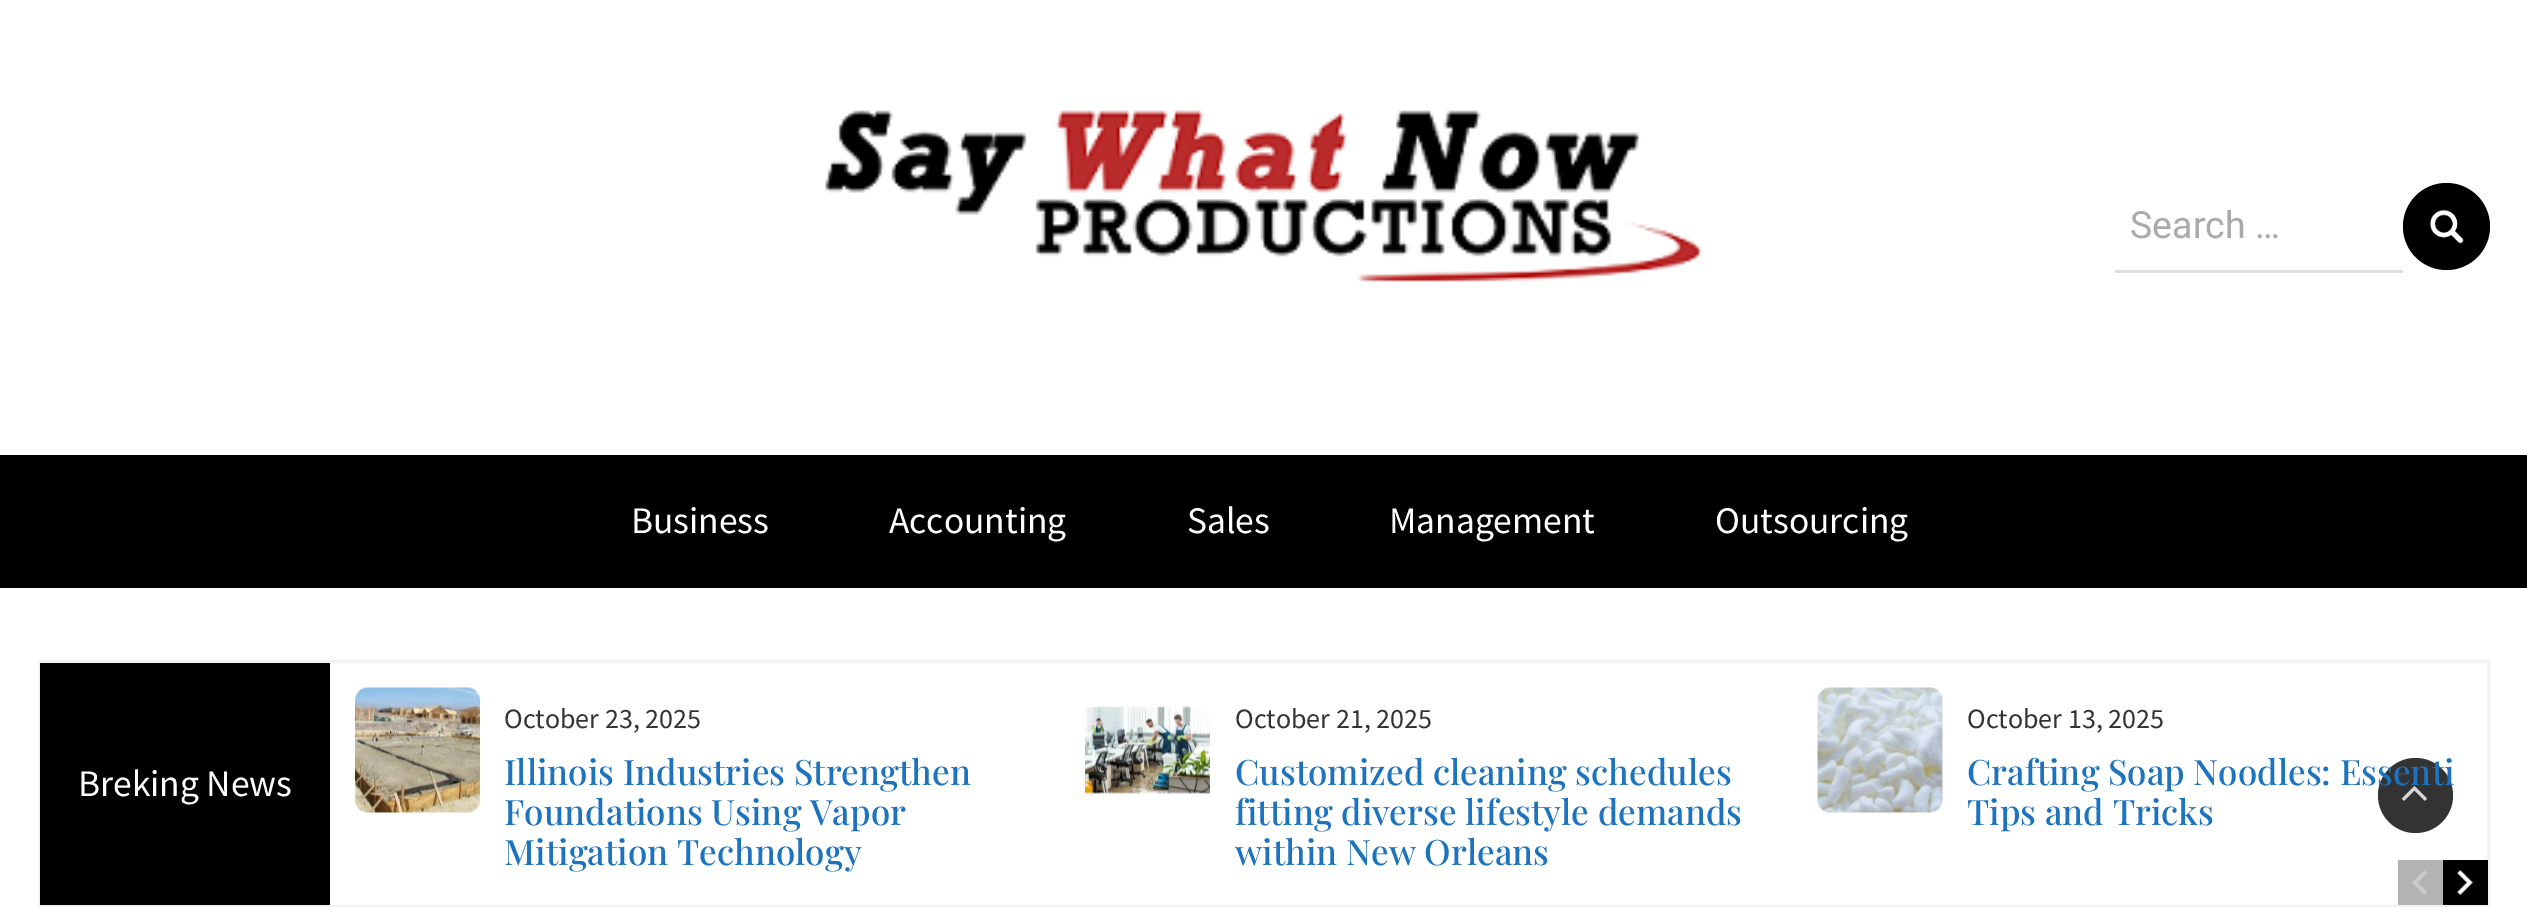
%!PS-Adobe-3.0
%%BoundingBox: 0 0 2527 907
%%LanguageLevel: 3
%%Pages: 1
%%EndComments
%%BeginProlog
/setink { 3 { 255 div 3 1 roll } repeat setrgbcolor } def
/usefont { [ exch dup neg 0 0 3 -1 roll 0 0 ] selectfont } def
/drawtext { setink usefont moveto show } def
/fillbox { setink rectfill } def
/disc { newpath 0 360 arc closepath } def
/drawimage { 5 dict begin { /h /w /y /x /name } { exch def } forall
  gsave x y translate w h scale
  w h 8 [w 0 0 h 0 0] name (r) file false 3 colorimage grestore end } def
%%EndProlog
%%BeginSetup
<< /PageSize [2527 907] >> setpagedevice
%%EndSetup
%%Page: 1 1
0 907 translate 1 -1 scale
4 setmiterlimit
0 0 2527 907 255 255 255 fillbox
(assets/img1.rgb) 825 110 878 172 drawimage
2115 270 288 3 221 221 221 fillbox
(Search …) 2130 238 /Roboto-Regular 37.5 170 170 170 drawtext
0 0 0 setink
2446.5 226.5 43.5 disc fill
(assets/img2.rgb) 2430 209 34 35 drawimage
0 455 2527 133 0 0 0 fillbox
(Business) 631 533 /SourceSansPro-Regular 37.5 255 255 255 drawtext
(Accounting) 889 533 /SourceSansPro-Regular 37.5 255 255 255 drawtext
(Sales) 1187 533 /SourceSansPro-Regular 37.5 255 255 255 drawtext
(Management) 1389 533 /SourceSansPro-Regular 37.5 255 255 255 drawtext
(Outsourcing) 1715 533 /SourceSansPro-Regular 37.5 255 255 255 drawtext
242 242 242 setink
3 setlinewidth
39.5 661.5 2449 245 rectstroke
40 663 290 242 0 0 0 fillbox
(Breking News) 78 796 /SourceSansPro-Regular 37.5 255 255 255 drawtext
(assets/img3.rgb) 355 687 125 126 drawimage
(October 23, 2025) 504 728 /SourceSansPro-Regular 28 51 51 51 drawtext
(Illinois Industries Strengthen) 504 785 /PlayfairDisplay-Medium 35 30 115 190 drawtext
(Foundations Using Vapor) 504 825 /PlayfairDisplay-Medium 35 30 115 190 drawtext
(Mitigation Technology) 504 865 /PlayfairDisplay-Medium 35 30 115 190 drawtext
(assets/img4.rgb) 1085 706 125 88 drawimage
(October 21, 2025) 1235 728 /SourceSansPro-Regular 28 51 51 51 drawtext
(Customized cleaning schedules) 1235 785 /PlayfairDisplay-Medium 35 30 115 190 drawtext
(fitting diverse lifestyle demands) 1235 825 /PlayfairDisplay-Medium 35 30 115 190 drawtext
(within New Orleans) 1235 865 /PlayfairDisplay-Medium 35 30 115 190 drawtext
(assets/img5.rgb) 1817 687 126 126 drawimage
(October 13, 2025) 1967 728 /SourceSansPro-Regular 28 51 51 51 drawtext
2415.5 795.5 37.5 disc fill
(assets/img8.rgb) 2402 786 25 15 drawimage
(Crafting Soap Noodles: Essenti) 1967 785 /PlayfairDisplay-Medium 35 30 115 190 drawtext
gsave
1968 688 495 152 rectclip
(Tips and Tricks) 1967 825 /PlayfairDisplay-Medium 35 30 115 190 drawtext
grestore
2398 860 45 45 179 179 179 fillbox
(assets/img6.rgb) 2412 870 16 25 drawimage
2443 860 45 45 0 0 0 fillbox
(assets/img7.rgb) 2457 870 16 25 drawimage
showpage
%%EOF
